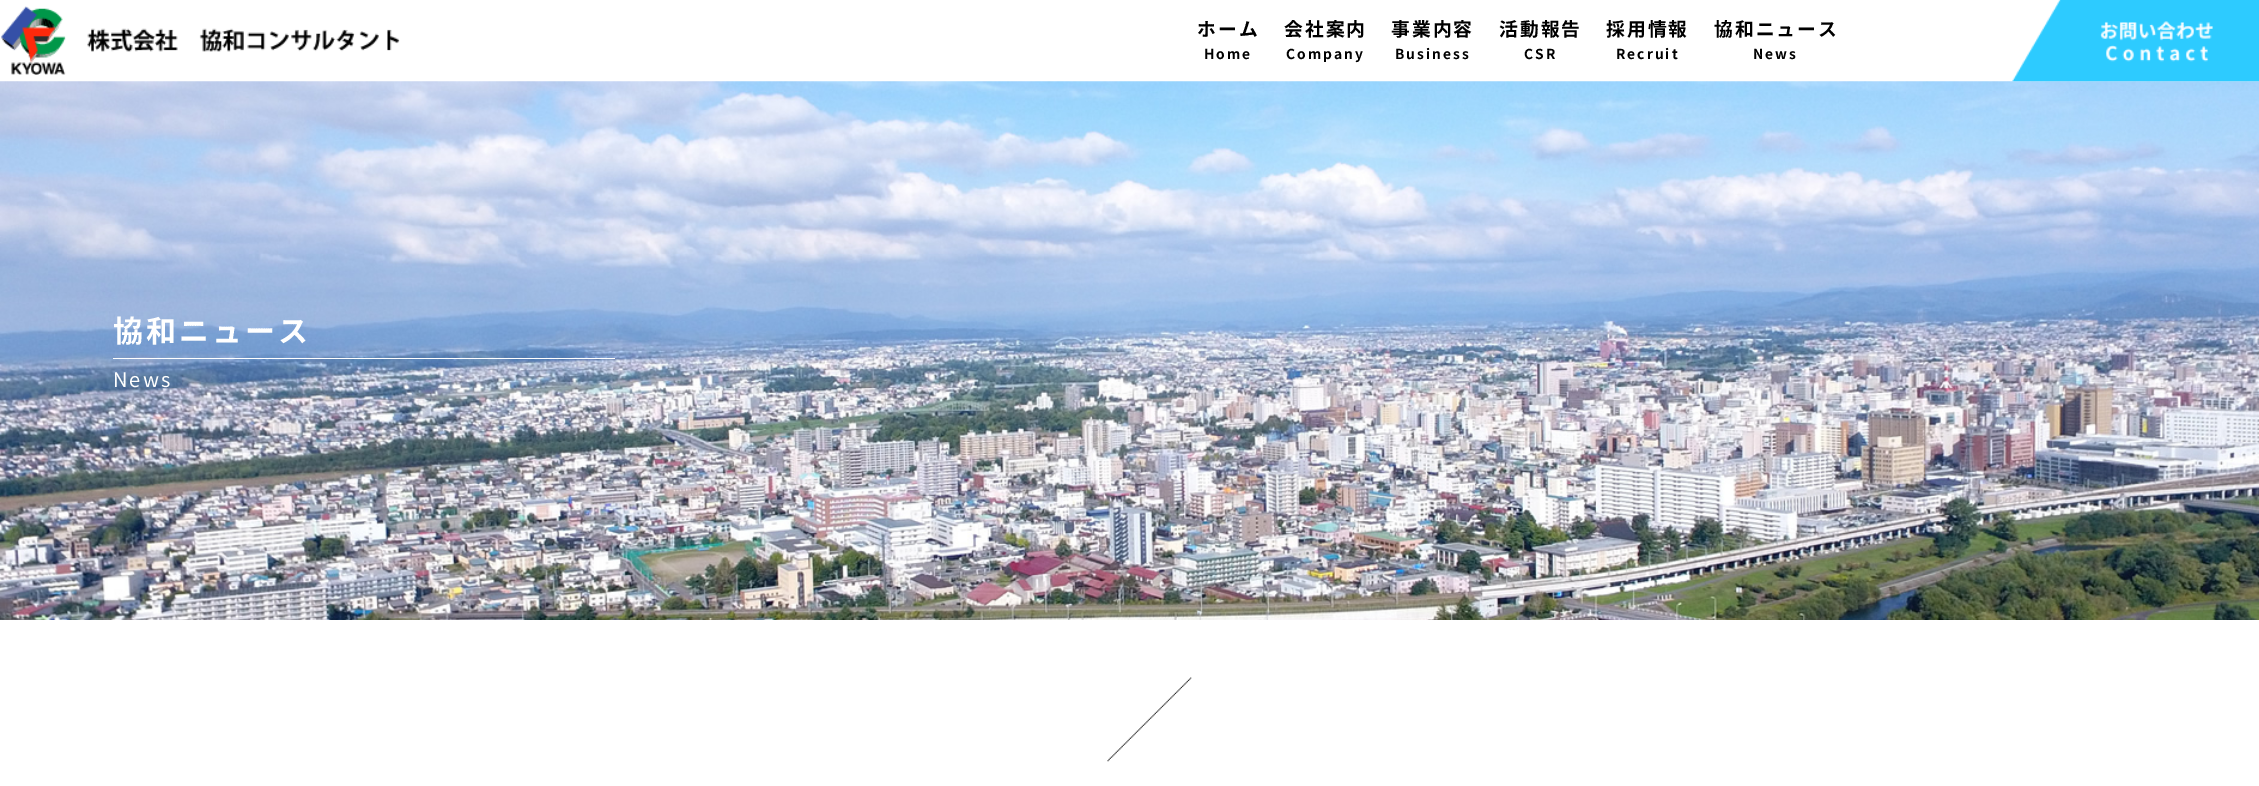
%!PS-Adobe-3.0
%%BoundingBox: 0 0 2259 786
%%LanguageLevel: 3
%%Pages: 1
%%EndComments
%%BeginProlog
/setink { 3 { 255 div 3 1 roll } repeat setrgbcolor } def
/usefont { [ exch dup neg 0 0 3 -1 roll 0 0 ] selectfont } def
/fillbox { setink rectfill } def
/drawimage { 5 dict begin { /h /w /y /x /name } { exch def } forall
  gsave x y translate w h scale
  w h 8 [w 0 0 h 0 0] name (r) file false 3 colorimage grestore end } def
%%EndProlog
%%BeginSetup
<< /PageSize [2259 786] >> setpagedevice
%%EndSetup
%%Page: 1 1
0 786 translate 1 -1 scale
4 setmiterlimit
0 0 2259 786 255 255 255 fillbox
(assets/img1.rgb) 1 6 399 69 drawimage
/NotoSansJP-Bold 18.75 usefont
0 0 0 setink
1197 36 moveto 2 0 (ホーム) ashow
/NotoSansJP-Bold 13.75 usefont
1204 59 moveto 2 0 (Home) ashow
/NotoSansJP-Bold 18.75 usefont
1284 36 moveto 2 0 (会社案内) ashow
/NotoSansJP-Bold 13.75 usefont
1286 59 moveto 2 0 (Company) ashow
/NotoSansJP-Bold 18.75 usefont
1391 36 moveto 2 0 (事業内容) ashow
/NotoSansJP-Bold 13.75 usefont
1395 59 moveto 2 0 (Business) ashow
/NotoSansJP-Bold 18.75 usefont
1499 36 moveto 2 0 (活動報告) ashow
/NotoSansJP-Bold 13.75 usefont
1524 59 moveto 2 0 (CSR) ashow
/NotoSansJP-Bold 18.75 usefont
1606 36 moveto 2 0 (採用情報) ashow
/NotoSansJP-Bold 13.75 usefont
1616 59 moveto 2 0 (Recruit) ashow
/NotoSansJP-Bold 18.75 usefont
1714 36 moveto 2 0 (協和ニュース) ashow
/NotoSansJP-Bold 13.75 usefont
1753 59 moveto 2 0 (News) ashow
(assets/img3.rgb) 0 81 2259 539 drawimage
(assets/img2.rgb) 2012 0 247 82 drawimage
113 358 502 1 255 255 255 fillbox
/NotoSansJP-Bold 30 usefont
113 342 moveto 3 0 (協和ニュース) ashow
/NotoSansJP-Regular 20 usefont
113 387 moveto 2 0 (News) ashow
(assets/img4.rgb) 1107 677 85 85 drawimage
showpage
%%EOF
